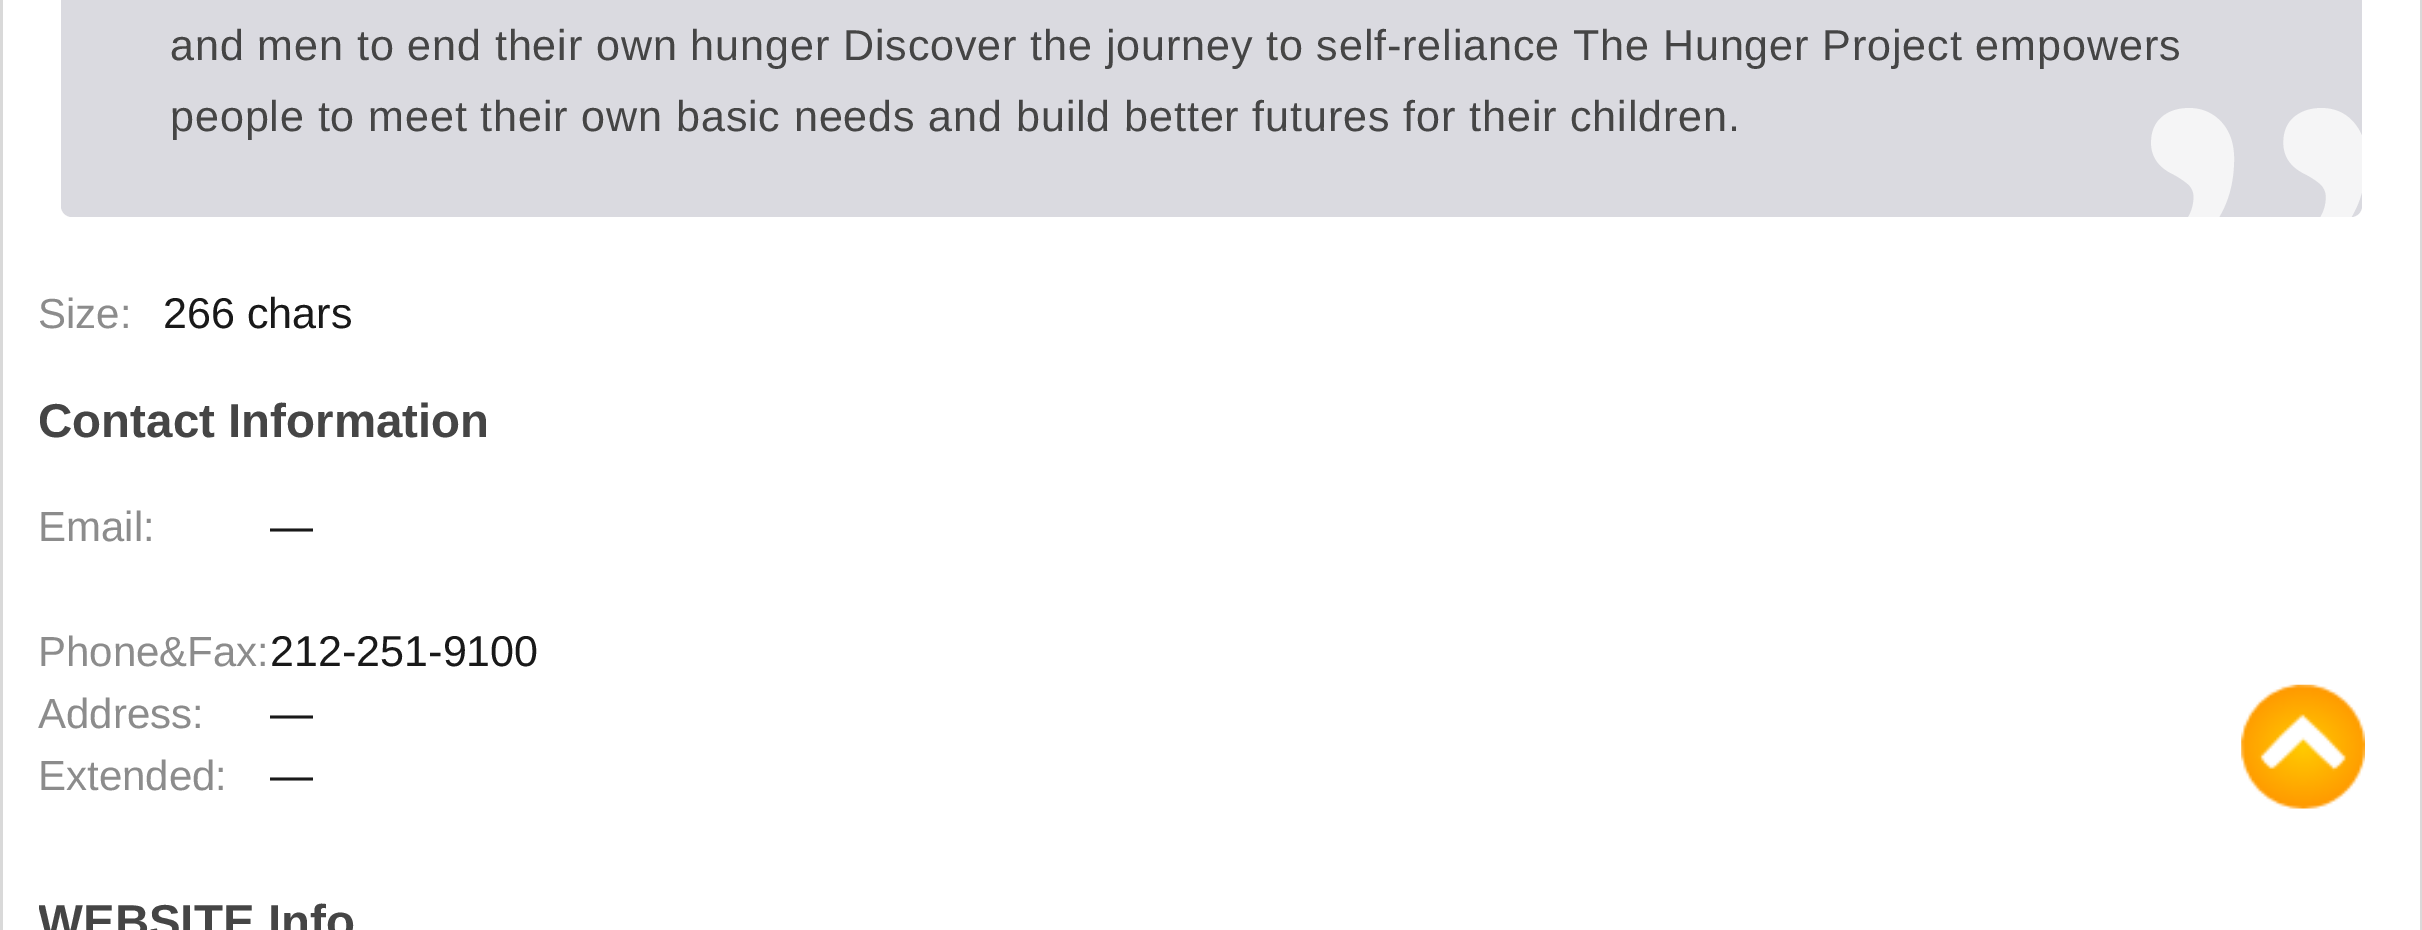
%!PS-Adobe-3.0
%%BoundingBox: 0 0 2422 930
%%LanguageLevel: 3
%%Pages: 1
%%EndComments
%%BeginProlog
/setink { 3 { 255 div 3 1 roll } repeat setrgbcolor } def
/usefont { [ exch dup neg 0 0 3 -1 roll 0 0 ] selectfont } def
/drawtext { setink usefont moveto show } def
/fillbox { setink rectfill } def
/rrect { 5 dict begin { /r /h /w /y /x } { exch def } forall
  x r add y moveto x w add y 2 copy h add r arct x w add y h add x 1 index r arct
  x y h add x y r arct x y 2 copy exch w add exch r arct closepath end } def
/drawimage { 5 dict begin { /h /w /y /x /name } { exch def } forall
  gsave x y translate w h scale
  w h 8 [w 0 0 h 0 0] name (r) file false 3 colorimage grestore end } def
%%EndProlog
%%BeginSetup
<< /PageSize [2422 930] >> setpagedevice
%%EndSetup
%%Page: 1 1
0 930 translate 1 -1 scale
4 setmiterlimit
0 0 2422 930 255 255 255 fillbox
2420 0 2 930 217 217 217 fillbox
0 0 3 930 217 217 217 fillbox
218 218 224 setink
61 -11 2301 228 11 rrect fill
/LiberationSans-Regular 43.1 usefont
69 69 69 setink
170 60 moveto 0.88 0 (and men to end their own hunger Discover the journey to self-reliance The Hunger Project empowers) ashow
170 131 moveto 0.88 0 (people to meet their own basic needs and build better futures for their children.) ashow
gsave
61 -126 2301 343 11 rrect clip newpath
/LiberationSerif-Regular 647 usefont
245 245 246 setink
2111 537 moveto 0.88 0 (”) ashow
grestore
(Size:) 38 328 /LiberationSans-Regular 42 140 140 140 drawtext
(266 chars) 163 328 /LiberationSans-Regular 43.1 25 25 25 drawtext
(Contact Information) 38 437 /LiberationSans-Bold 47.5 69 69 69 drawtext
(Email:) 38 541 /LiberationSans-Regular 42 140 140 140 drawtext
(—) 270 541 /LiberationSans-Regular 43.1 25 25 25 drawtext
(Phone&Fax:) 38 666 /LiberationSans-Regular 42 140 140 140 drawtext
(212-251-9100) 270 666 /LiberationSans-Regular 43.1 25 25 25 drawtext
(Address:) 38 728 /LiberationSans-Regular 42 140 140 140 drawtext
(—) 270 728 /LiberationSans-Regular 43.1 25 25 25 drawtext
(Extended:) 38 790 /LiberationSans-Regular 42 140 140 140 drawtext
(—) 270 790 /LiberationSans-Regular 43.1 25 25 25 drawtext
gsave
39 0 2345 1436 rectclip
(WEBSITE Info) 38 938 /LiberationSans-Bold 47.5 69 69 69 drawtext
grestore
(assets/img1.rgb) 2241 684 124 125 drawimage
showpage
%%EOF
